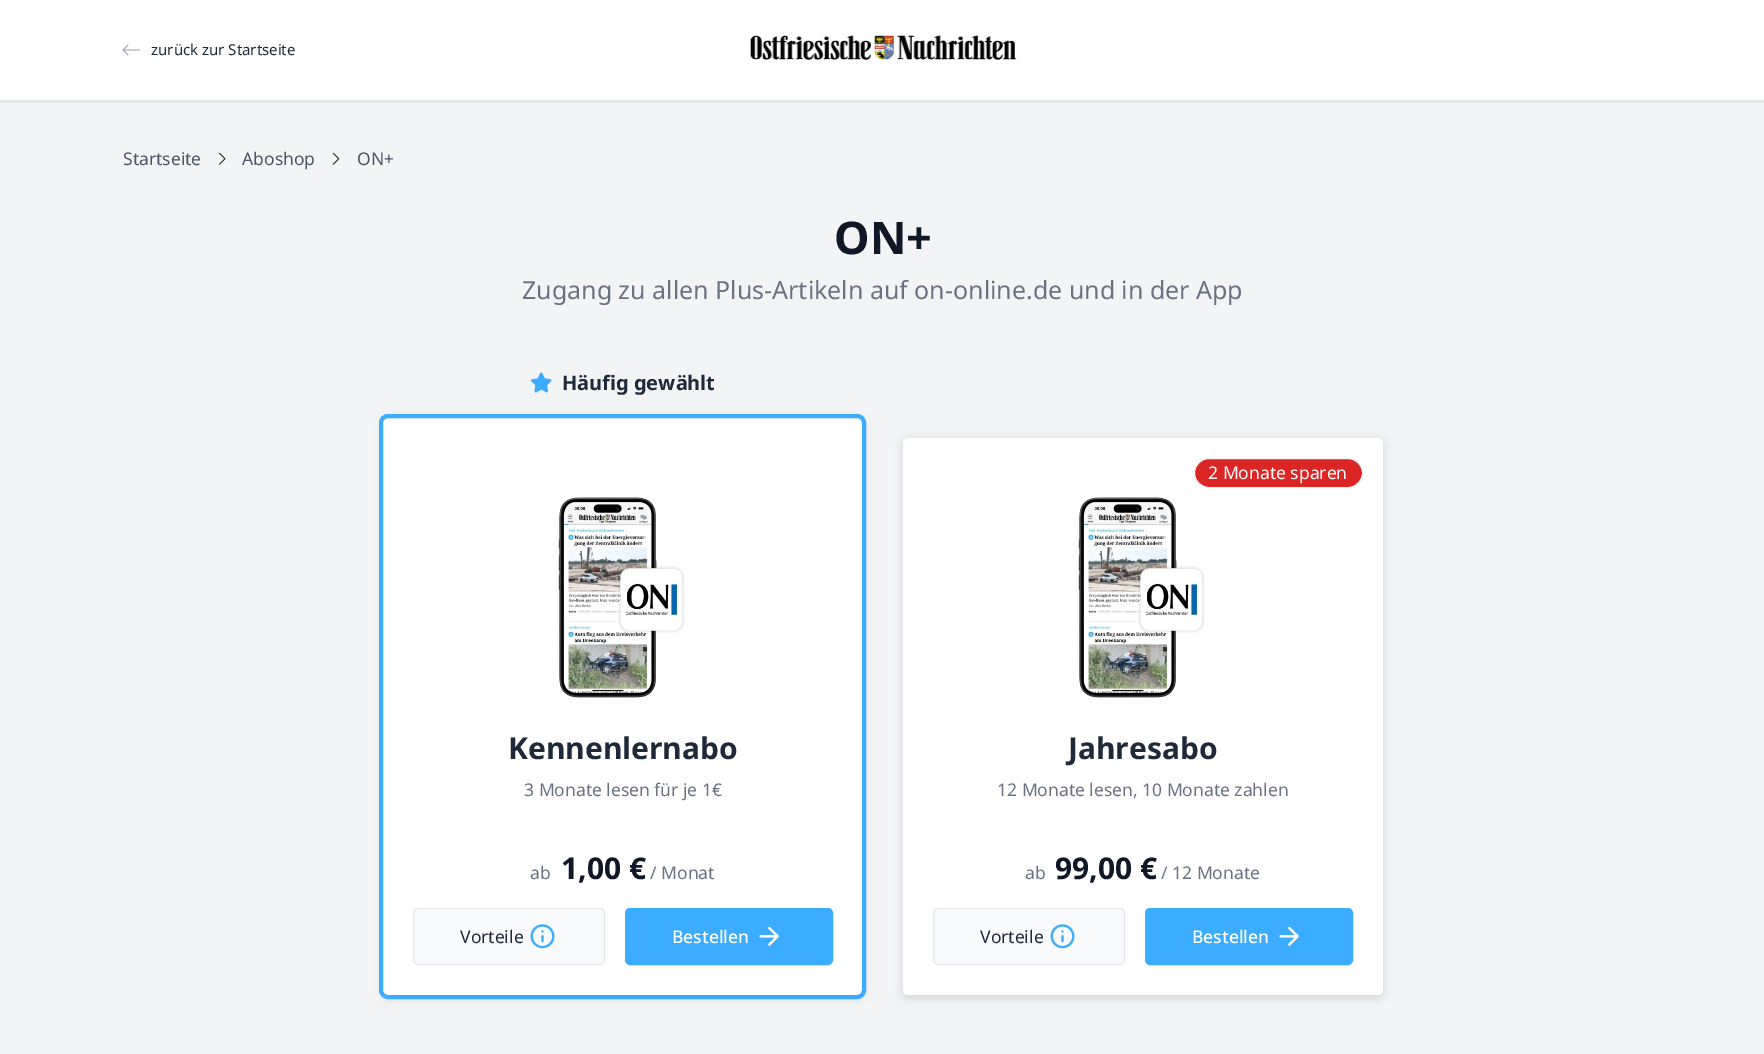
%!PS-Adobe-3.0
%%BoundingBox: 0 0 1764 1054
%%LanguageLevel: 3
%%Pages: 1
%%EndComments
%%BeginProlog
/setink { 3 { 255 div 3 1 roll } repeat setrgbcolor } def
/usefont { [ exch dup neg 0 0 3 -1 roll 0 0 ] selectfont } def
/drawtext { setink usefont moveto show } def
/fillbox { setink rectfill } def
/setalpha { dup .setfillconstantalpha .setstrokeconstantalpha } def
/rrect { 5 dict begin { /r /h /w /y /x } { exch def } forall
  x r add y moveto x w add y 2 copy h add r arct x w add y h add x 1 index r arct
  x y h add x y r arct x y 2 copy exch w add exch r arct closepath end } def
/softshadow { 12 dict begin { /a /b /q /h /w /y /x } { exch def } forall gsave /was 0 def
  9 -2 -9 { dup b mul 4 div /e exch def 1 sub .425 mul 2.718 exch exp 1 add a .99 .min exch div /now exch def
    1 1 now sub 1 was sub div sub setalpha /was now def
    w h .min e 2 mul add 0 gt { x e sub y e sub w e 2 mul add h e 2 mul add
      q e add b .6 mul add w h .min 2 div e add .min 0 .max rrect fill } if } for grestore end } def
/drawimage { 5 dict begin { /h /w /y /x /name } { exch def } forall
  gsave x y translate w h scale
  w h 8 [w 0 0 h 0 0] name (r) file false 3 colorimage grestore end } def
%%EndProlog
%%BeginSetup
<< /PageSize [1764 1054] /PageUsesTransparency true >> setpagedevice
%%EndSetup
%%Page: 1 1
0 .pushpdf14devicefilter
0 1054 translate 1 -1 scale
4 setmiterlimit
0 0 1764 1054 243 244 246 fillbox
0 0 1764 100 255 255 255 fillbox
0 100 1764 3 229 231 235 fillbox
(assets/img1.rgb) 122 44 18 12 drawimage
(zurück zur Startseite) 151 55 /NotoSans-Regular 15 30 41 57 drawtext
(assets/img2.rgb) 750 35 267 25 drawimage
(Startseite) 123 165 /NotoSans-Regular 17.5 74 85 101 drawtext
(assets/img3.rgb) 219 152 7 13 drawimage
(Aboshop) 242 165 /NotoSans-Regular 17.5 74 85 101 drawtext
(assets/img4.rgb) 332 152 8 13 drawimage
(ON+) 357 165 /NotoSans-Regular 17.5 74 85 101 drawtext
(ON+) 834 254 /NotoSans-Bold 45 16 24 40 drawtext
(Zugang zu allen Plus-Artikeln auf on-online.de und in der App) 522 299 /NotoSans-Regular 25 106 114 130 drawtext
(assets/img5.rgb) 531 372 21 21 drawimage
(Häufig gewählt) 562 390 /NotoSans-Bold 20 30 41 57 drawtext
0 0 0 setink
383 420 480 578 5 5 0.12 softshadow
255 255 255 setink
381 416 483 581 7 rrect gsave fill grestore
59 172 255 setink
4 setlinewidth
stroke
(assets/img6.rgb) 558 497 127 201 drawimage
(Kennenlernabo) 508 759 /NotoSans-Bold 30 30 41 57 drawtext
(3 Monate lesen für je 1€) 524 796 /NotoSans-Regular 17.5 106 114 130 drawtext
(ab) 530 879 /NotoSans-Regular 17.5 106 114 130 drawtext
(1,00 €) 561 879 /NotoSans-Bold 30 16 24 40 drawtext
(/ Monat) 650 879 /NotoSans-Regular 17.5 106 114 130 drawtext
249 250 251 setink
413.5 908.5 191 56 4.5 rrect gsave fill grestore
229 231 235 setink
1 setlinewidth
stroke
(Vorteile) 460 943 /NotoSans-Regular 17.5 30 41 57 drawtext
(assets/img7.rgb) 530 924 25 25 drawimage
59 172 255 setink
625.5 908.5 207 56 4.5 rrect gsave fill grestore
stroke
(Bestellen) 672 943 /NotoSans-Medium 17.5 255 255 255 drawtext
(assets/img8.rgb) 759 926 20 20 drawimage
0 0 0 setink
903 440 480 558 5 5 0.12 softshadow
255 255 255 setink
903 438 480 557 5 rrect fill
220 38 38 setink
1194.5 458.5 168 29 14.5 rrect gsave fill grestore
248 248 248 setink
stroke
(2 Monate sparen) 1208 479 /NotoSans-Regular 17.5 255 255 255 drawtext
(assets/img6.rgb) 1078 497 127 201 drawimage
(Jahresabo) 1068 759 /NotoSans-Bold 30 30 41 57 drawtext
(12 Monate lesen, 10 Monate zahlen) 997 796 /NotoSans-Regular 17.5 106 114 130 drawtext
(ab) 1025 879 /NotoSans-Regular 17.5 106 114 130 drawtext
(99,00 €) 1055 879 /NotoSans-Bold 30 16 24 40 drawtext
(/ 12 Monate) 1161 879 /NotoSans-Regular 17.5 106 114 130 drawtext
249 250 251 setink
933.5 908.5 191 56 4.5 rrect gsave fill grestore
229 231 235 setink
stroke
(Vorteile) 980 943 /NotoSans-Regular 17.5 30 41 57 drawtext
(assets/img7.rgb) 1050 924 25 25 drawimage
59 172 255 setink
1145.5 908.5 207 56 4.5 rrect gsave fill grestore
stroke
(Bestellen) 1192 943 /NotoSans-Medium 17.5 255 255 255 drawtext
(assets/img8.rgb) 1279 926 20 20 drawimage
.poppdf14devicefilter showpage
%%EOF
